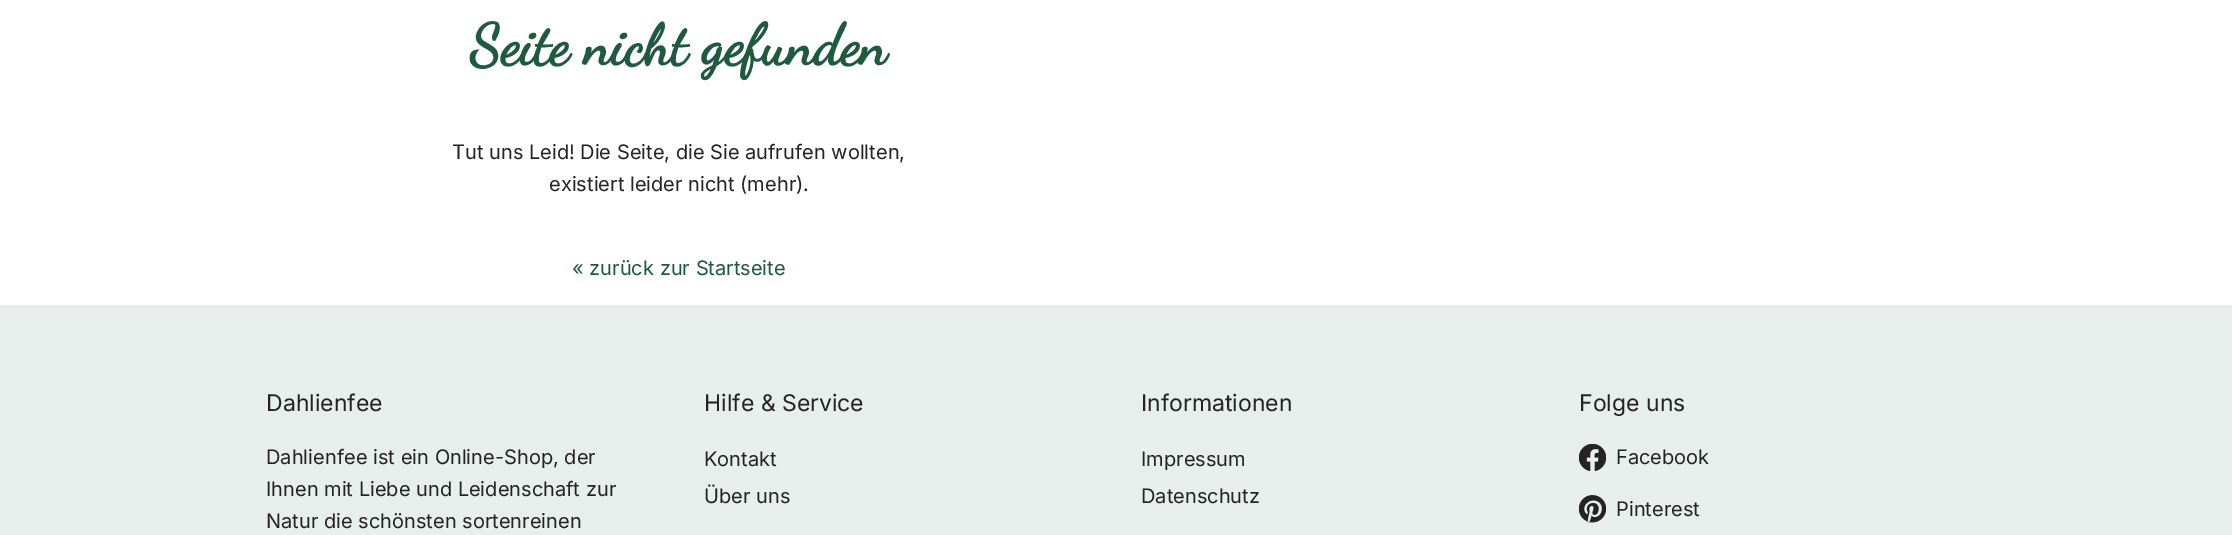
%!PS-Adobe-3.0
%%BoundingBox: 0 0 2232 535
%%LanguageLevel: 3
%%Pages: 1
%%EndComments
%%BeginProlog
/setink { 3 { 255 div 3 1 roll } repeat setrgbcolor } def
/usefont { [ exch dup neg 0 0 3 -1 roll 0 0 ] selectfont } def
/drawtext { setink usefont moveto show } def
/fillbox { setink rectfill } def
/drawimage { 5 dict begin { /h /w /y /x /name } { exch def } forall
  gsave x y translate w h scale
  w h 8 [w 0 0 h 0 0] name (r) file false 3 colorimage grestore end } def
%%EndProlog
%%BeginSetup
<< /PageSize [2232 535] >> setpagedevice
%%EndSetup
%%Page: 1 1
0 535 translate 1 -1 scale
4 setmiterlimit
0 0 2232 535 255 255 255 fillbox
(Seite nicht gefunden) 470 64 /DancingScript-Bold 57.5 31 90 64 drawtext
(Tut uns Leid! Die Seite, die Sie aufrufen wollten,) 452 159 /Inter-Regular 20 36 36 36 drawtext
(existiert leider nicht \(mehr\).) 549 191 /Inter-Regular 20 36 36 36 drawtext
(« zurück zur Startseite) 572 275 /Inter-Regular 20 31 90 64 drawtext
0 305 2232 230 232 238 235 fillbox
(Dahlienfee) 266 411 /Inter-Regular 23 36 36 36 drawtext
(Dahlienfee ist ein Online-Shop, der) 266 464 /Inter-Regular 20 36 36 36 drawtext
(Ihnen mit Liebe und Leidenschaft zur) 266 496 /Inter-Regular 20 36 36 36 drawtext
(Natur die schönsten sortenreinen) 266 528 /Inter-Regular 20 36 36 36 drawtext
(Hilfe & Service) 704 411 /Inter-Regular 23 36 36 36 drawtext
(Kontakt) 704 466 /Inter-Regular 20 36 36 36 drawtext
(Über uns) 704 503 /Inter-Regular 20 36 36 36 drawtext
(Informationen) 1141 411 /Inter-Regular 23 36 36 36 drawtext
(Impressum) 1141 466 /Inter-Regular 20 36 36 36 drawtext
(Datenschutz) 1141 503 /Inter-Regular 20 36 36 36 drawtext
(Folge uns) 1579 411 /Inter-Regular 23 36 36 36 drawtext
(assets/img1.rgb) 1579 444 27 27 drawimage
(Facebook) 1616 464 /Inter-Regular 20 36 36 36 drawtext
(assets/img2.rgb) 1579 495 27 28 drawimage
(Pinterest) 1616 516 /Inter-Regular 20 36 36 36 drawtext
showpage
%%EOF
